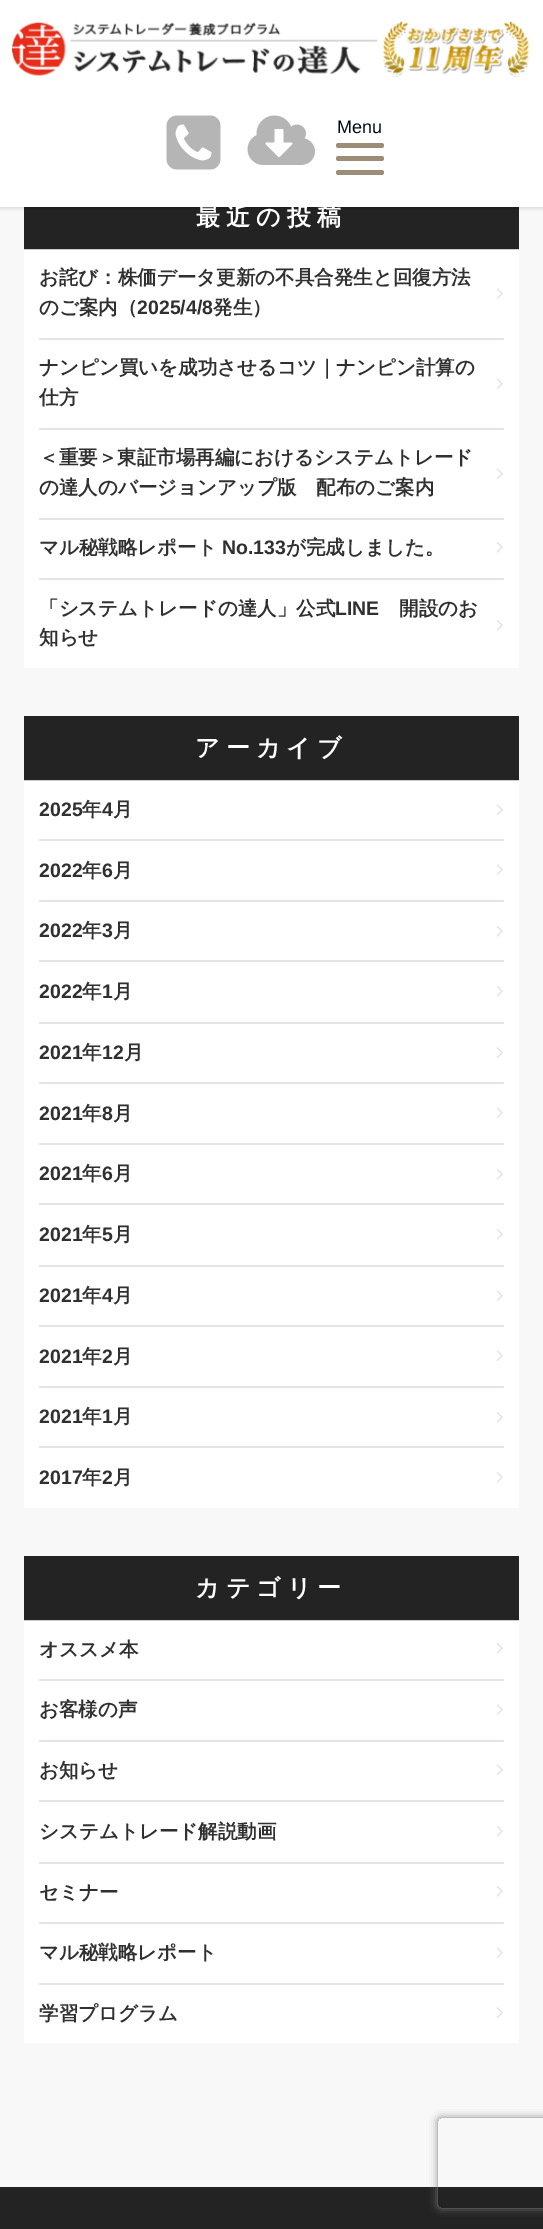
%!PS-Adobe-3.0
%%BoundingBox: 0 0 543 2229
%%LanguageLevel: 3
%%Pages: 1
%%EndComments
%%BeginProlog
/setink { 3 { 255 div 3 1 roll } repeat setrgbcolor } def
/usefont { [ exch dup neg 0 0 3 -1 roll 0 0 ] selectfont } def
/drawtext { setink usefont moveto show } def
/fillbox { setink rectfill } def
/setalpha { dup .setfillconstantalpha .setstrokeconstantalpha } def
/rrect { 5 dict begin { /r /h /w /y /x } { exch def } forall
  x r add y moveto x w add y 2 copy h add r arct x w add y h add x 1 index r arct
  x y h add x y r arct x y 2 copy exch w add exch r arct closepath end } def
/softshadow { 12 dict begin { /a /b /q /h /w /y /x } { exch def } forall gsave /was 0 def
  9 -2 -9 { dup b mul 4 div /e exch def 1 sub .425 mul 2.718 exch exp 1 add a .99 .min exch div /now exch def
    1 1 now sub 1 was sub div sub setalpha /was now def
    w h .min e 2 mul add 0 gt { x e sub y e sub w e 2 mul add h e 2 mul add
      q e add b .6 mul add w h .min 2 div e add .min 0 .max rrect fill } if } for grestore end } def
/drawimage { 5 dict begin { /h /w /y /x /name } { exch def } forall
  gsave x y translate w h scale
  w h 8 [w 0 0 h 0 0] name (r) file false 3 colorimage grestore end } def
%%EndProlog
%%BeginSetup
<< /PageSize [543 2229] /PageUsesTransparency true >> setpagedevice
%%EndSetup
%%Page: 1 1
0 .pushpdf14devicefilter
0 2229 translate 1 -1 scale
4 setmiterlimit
0 0 543 2229 248 248 248 fillbox
24 207 495 42 35 35 35 fillbox
0 0 0 setink
-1 -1 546 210 0 1.5 0.1 softshadow
0 0 543 207 255 255 255 fillbox
(assets/img1.rgb) 12 21 518 57 drawimage
(assets/img2.rgb) 166 115 55 55 drawimage
(assets/img3.rgb) 247 115 68 50 drawimage
(Menu) 337 133 /LiberationSans-Regular 18 0 12 21 drawtext
155 141 119 setink
336 143 48 5 2.5 rrect fill
336 156 48 5 2.5 rrect fill
336 170 48 5 2.5 rrect fill
24 250 495 418 255 255 255 fillbox
24 249 495 1 204 204 204 fillbox
/WenQuanYiZenHei-Bold 24 usefont
255 255 255 setink
196 225 moveto 6 0 (最近の投稿) ashow
39 338 465 2 226 229 232 fillbox
(お詫び：株価データ更新の不具合発生と回復方法) 39 284 /WenQuanYiZenHei-Bold 19.5 48 48 48 drawtext
(assets/img4.rgb) 496 288 7 11 drawimage
(のご案内（) 39 314 /WenQuanYiZenHei-Bold 19.5 48 48 48 drawtext
(2025/4/8) 137 314 /LiberationSans-Bold 19.5 48 48 48 drawtext
(発生）) 213 314 /WenQuanYiZenHei-Bold 19.5 48 48 48 drawtext
39 428 465 2 226 229 232 fillbox
(ナンピン買いを成功させるコツ｜ナンピン計算の) 39 374 /WenQuanYiZenHei-Bold 19.5 48 48 48 drawtext
(assets/img4.rgb) 496 378 7 11 drawimage
(仕方) 39 404 /WenQuanYiZenHei-Bold 19.5 48 48 48 drawtext
39 518 465 2 226 229 232 fillbox
(＜重要＞東証市場再編におけるシステムトレード) 39 464 /WenQuanYiZenHei-Bold 19.5 48 48 48 drawtext
(assets/img4.rgb) 496 468 7 11 drawimage
(の達人のバージョンアップ版　配布のご案内) 39 494 /WenQuanYiZenHei-Bold 19.5 48 48 48 drawtext
39 578 465 2 226 229 232 fillbox
(マル秘戦略レポート) 39 554 /WenQuanYiZenHei-Bold 19.5 48 48 48 drawtext
(No.133) 222 554 /LiberationSans-Bold 19.5 48 48 48 drawtext
(が完成しました。) 286 554 /WenQuanYiZenHei-Bold 19.5 48 48 48 drawtext
(assets/img5.rgb) 496 542 7 11 drawimage
(「システムトレードの達人」公式) 39 615 /WenQuanYiZenHei-Bold 19.5 48 48 48 drawtext
(LINE) 335 615 /LiberationSans-Bold 19.5 48 48 48 drawtext
(開設のお) 399 615 /WenQuanYiZenHei-Bold 19.5 48 48 48 drawtext
(assets/img5.rgb) 496 620 7 11 drawimage
(知らせ) 39 644 /WenQuanYiZenHei-Bold 19.5 48 48 48 drawtext
24 781 495 727 255 255 255 fillbox
24 780 495 1 204 204 204 fillbox
24 716 495 64 35 35 35 fillbox
/WenQuanYiZenHei-Bold 24 usefont
255 255 255 setink
195 756 moveto 6 0 (アーカイブ) ashow
39 839 465 2 226 229 232 fillbox
(2025) 39 816 /LiberationSans-Bold 19.5 48 48 48 drawtext
(年) 82 816 /WenQuanYiZenHei-Bold 19.5 48 48 48 drawtext
(4) 102 816 /LiberationSans-Bold 19.5 48 48 48 drawtext
(月) 113 816 /WenQuanYiZenHei-Bold 19.5 48 48 48 drawtext
(assets/img4.rgb) 496 804 7 11 drawimage
39 900 465 2 226 229 232 fillbox
(2022) 39 877 /LiberationSans-Bold 19.5 48 48 48 drawtext
(年) 82 877 /WenQuanYiZenHei-Bold 19.5 48 48 48 drawtext
(6) 102 877 /LiberationSans-Bold 19.5 48 48 48 drawtext
(月) 113 877 /WenQuanYiZenHei-Bold 19.5 48 48 48 drawtext
(assets/img4.rgb) 496 864 7 11 drawimage
39 960 465 2 226 229 232 fillbox
(2022) 39 937 /LiberationSans-Bold 19.5 48 48 48 drawtext
(年) 82 937 /WenQuanYiZenHei-Bold 19.5 48 48 48 drawtext
(3) 102 937 /LiberationSans-Bold 19.5 48 48 48 drawtext
(月) 113 937 /WenQuanYiZenHei-Bold 19.5 48 48 48 drawtext
(assets/img5.rgb) 496 926 7 11 drawimage
39 1022 465 2 226 229 232 fillbox
(2022) 39 998 /LiberationSans-Bold 19.5 48 48 48 drawtext
(年) 82 998 /WenQuanYiZenHei-Bold 19.5 48 48 48 drawtext
(1) 102 998 /LiberationSans-Bold 19.5 48 48 48 drawtext
(月) 113 998 /WenQuanYiZenHei-Bold 19.5 48 48 48 drawtext
(assets/img5.rgb) 496 986 7 11 drawimage
39 1082 465 2 226 229 232 fillbox
(2021) 39 1059 /LiberationSans-Bold 19.5 48 48 48 drawtext
(年) 82 1059 /WenQuanYiZenHei-Bold 19.5 48 48 48 drawtext
(12) 102 1059 /LiberationSans-Bold 19.5 48 48 48 drawtext
(月) 124 1059 /WenQuanYiZenHei-Bold 19.5 48 48 48 drawtext
(assets/img4.rgb) 496 1047 7 11 drawimage
39 1143 465 2 226 229 232 fillbox
(2021) 39 1120 /LiberationSans-Bold 19.5 48 48 48 drawtext
(年) 82 1120 /WenQuanYiZenHei-Bold 19.5 48 48 48 drawtext
(8) 102 1120 /LiberationSans-Bold 19.5 48 48 48 drawtext
(月) 113 1120 /WenQuanYiZenHei-Bold 19.5 48 48 48 drawtext
(assets/img4.rgb) 496 1107 7 11 drawimage
39 1203 465 2 226 229 232 fillbox
(2021) 39 1180 /LiberationSans-Bold 19.5 48 48 48 drawtext
(年) 82 1180 /WenQuanYiZenHei-Bold 19.5 48 48 48 drawtext
(6) 102 1180 /LiberationSans-Bold 19.5 48 48 48 drawtext
(月) 113 1180 /WenQuanYiZenHei-Bold 19.5 48 48 48 drawtext
(assets/img5.rgb) 496 1169 7 11 drawimage
39 1265 465 2 226 229 232 fillbox
(2021) 39 1241 /LiberationSans-Bold 19.5 48 48 48 drawtext
(年) 82 1241 /WenQuanYiZenHei-Bold 19.5 48 48 48 drawtext
(5) 102 1241 /LiberationSans-Bold 19.5 48 48 48 drawtext
(月) 113 1241 /WenQuanYiZenHei-Bold 19.5 48 48 48 drawtext
(assets/img5.rgb) 496 1229 7 11 drawimage
39 1325 465 2 226 229 232 fillbox
(2021) 39 1302 /LiberationSans-Bold 19.5 48 48 48 drawtext
(年) 82 1302 /WenQuanYiZenHei-Bold 19.5 48 48 48 drawtext
(4) 102 1302 /LiberationSans-Bold 19.5 48 48 48 drawtext
(月) 113 1302 /WenQuanYiZenHei-Bold 19.5 48 48 48 drawtext
(assets/img4.rgb) 496 1290 7 11 drawimage
39 1386 465 2 226 229 232 fillbox
(2021) 39 1363 /LiberationSans-Bold 19.5 48 48 48 drawtext
(年) 82 1363 /WenQuanYiZenHei-Bold 19.5 48 48 48 drawtext
(2) 102 1363 /LiberationSans-Bold 19.5 48 48 48 drawtext
(月) 113 1363 /WenQuanYiZenHei-Bold 19.5 48 48 48 drawtext
(assets/img4.rgb) 496 1350 7 11 drawimage
39 1446 465 2 226 229 232 fillbox
(2021) 39 1423 /LiberationSans-Bold 19.5 48 48 48 drawtext
(年) 82 1423 /WenQuanYiZenHei-Bold 19.5 48 48 48 drawtext
(1) 102 1423 /LiberationSans-Bold 19.5 48 48 48 drawtext
(月) 113 1423 /WenQuanYiZenHei-Bold 19.5 48 48 48 drawtext
(assets/img5.rgb) 496 1412 7 11 drawimage
(2017) 39 1484 /LiberationSans-Bold 19.5 48 48 48 drawtext
(年) 82 1484 /WenQuanYiZenHei-Bold 19.5 48 48 48 drawtext
(2) 102 1484 /LiberationSans-Bold 19.5 48 48 48 drawtext
(月) 113 1484 /WenQuanYiZenHei-Bold 19.5 48 48 48 drawtext
(assets/img5.rgb) 496 1472 7 11 drawimage
24 1621 495 422 255 255 255 fillbox
24 1620 495 1 204 204 204 fillbox
24 1556 495 64 35 35 35 fillbox
/WenQuanYiZenHei-Bold 24 usefont
255 255 255 setink
195 1596 moveto 6 0 (カテゴリー) ashow
39 1679 465 2 226 229 232 fillbox
(オススメ本) 39 1656 /WenQuanYiZenHei-Bold 19.5 48 48 48 drawtext
(assets/img5.rgb) 496 1643 7 11 drawimage
39 1740 465 2 226 229 232 fillbox
(お客様の声) 39 1716 /WenQuanYiZenHei-Bold 19.5 48 48 48 drawtext
(assets/img4.rgb) 496 1704 7 11 drawimage
39 1800 465 2 226 229 232 fillbox
(お知らせ) 39 1777 /WenQuanYiZenHei-Bold 19.5 48 48 48 drawtext
(assets/img4.rgb) 496 1764 7 11 drawimage
39 1862 465 2 226 229 232 fillbox
(システムトレード解説動画) 39 1838 /WenQuanYiZenHei-Bold 19.5 48 48 48 drawtext
(assets/img5.rgb) 496 1826 7 11 drawimage
39 1922 465 2 226 229 232 fillbox
(セミナー) 39 1899 /WenQuanYiZenHei-Bold 19.5 48 48 48 drawtext
(assets/img5.rgb) 496 1886 7 11 drawimage
39 1983 465 2 226 229 232 fillbox
(マル秘戦略レポート) 39 1959 /WenQuanYiZenHei-Bold 19.5 48 48 48 drawtext
(assets/img4.rgb) 496 1947 7 11 drawimage
(学習プログラム) 39 2020 /WenQuanYiZenHei-Bold 19.5 48 48 48 drawtext
(assets/img4.rgb) 496 2007 7 11 drawimage
0 2187 543 42 35 35 35 fillbox
gsave
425 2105 moveto 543 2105 lineto 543 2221 lineto 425 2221 lineto closepath 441 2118 moveto 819 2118 lineto 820.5 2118 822 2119.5 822 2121 curveto 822 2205 lineto 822 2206.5 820.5 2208 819 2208 curveto 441 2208 lineto 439.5 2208 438 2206.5 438 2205 curveto 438 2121 lineto 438 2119.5 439.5 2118 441 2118 curveto closepath eoclip newpath
128 128 128 setink
438 2118 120 90 3 4 1 softshadow
grestore
.poppdf14devicefilter showpage
%%EOF
